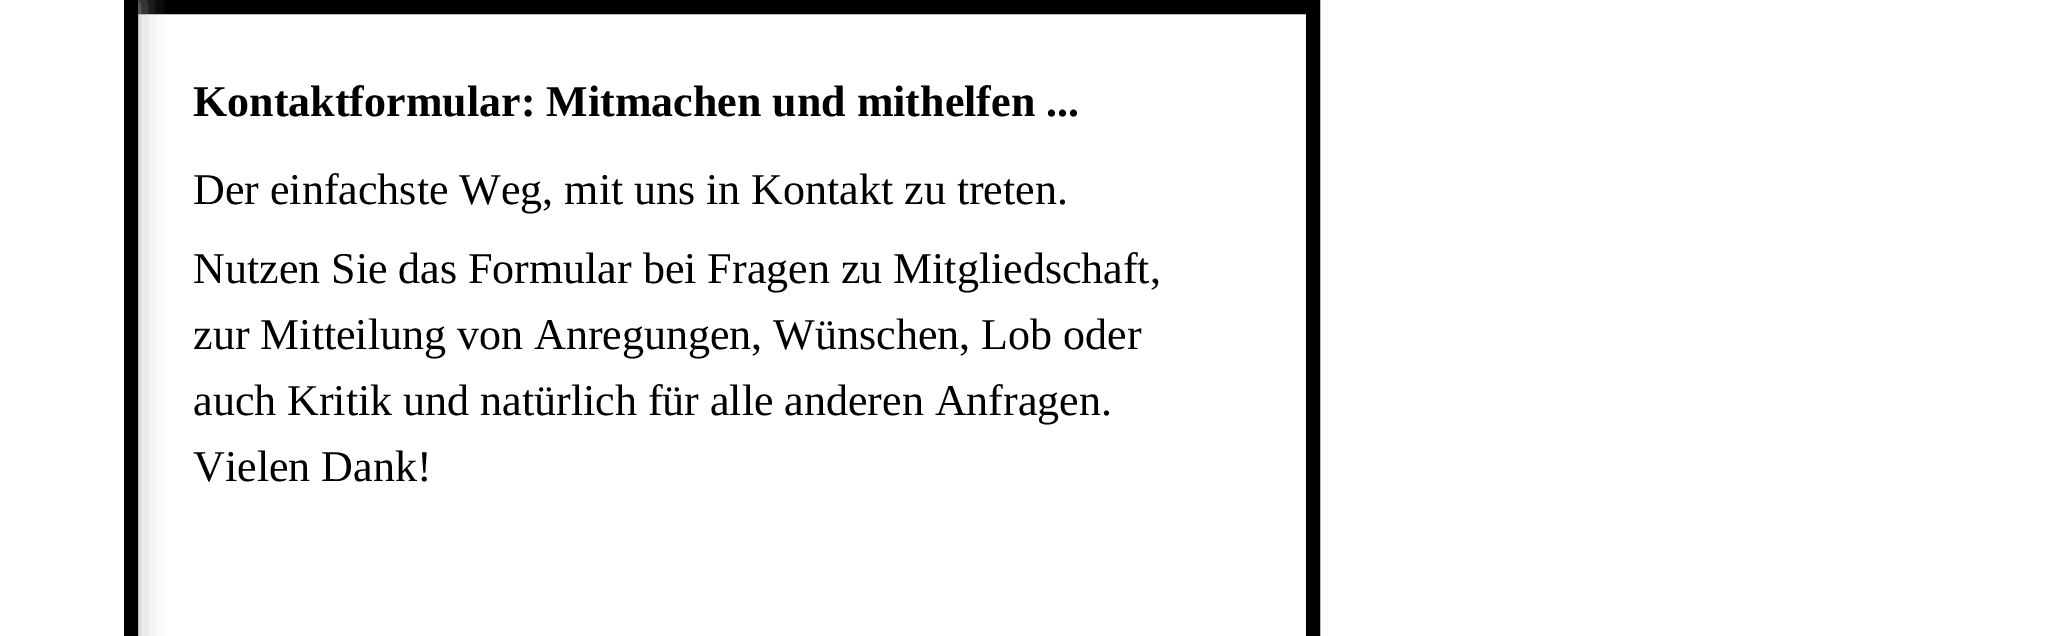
%!PS-Adobe-3.0
%%BoundingBox: 0 0 2065 636
%%LanguageLevel: 3
%%Pages: 1
%%EndComments
%%BeginProlog
/setink { 3 { 255 div 3 1 roll } repeat setrgbcolor } def
/usefont { [ exch dup neg 0 0 3 -1 roll 0 0 ] selectfont } def
/drawtext { setink usefont moveto show } def
/fillbox { setink rectfill } def
/setalpha { dup .setfillconstantalpha .setstrokeconstantalpha } def
/rrect { 5 dict begin { /r /h /w /y /x } { exch def } forall
  x r add y moveto x w add y 2 copy h add r arct x w add y h add x 1 index r arct
  x y h add x y r arct x y 2 copy exch w add exch r arct closepath end } def
/softshadow { 12 dict begin { /a /b /q /h /w /y /x } { exch def } forall gsave /was 0 def
  9 -2 -9 { dup b mul 4 div /e exch def 1 sub .425 mul 2.718 exch exp 1 add a .99 .min exch div /now exch def
    1 1 now sub 1 was sub div sub setalpha /was now def
    w h .min e 2 mul add 0 gt { x e sub y e sub w e 2 mul add h e 2 mul add
      q e add b .6 mul add w h .min 2 div e add .min 0 .max rrect fill } if } for grestore end } def
%%EndProlog
%%BeginSetup
<< /PageSize [2065 636] /PageUsesTransparency true >> setpagedevice
%%EndSetup
%%Page: 1 1
0 .pushpdf14devicefilter
0 636 translate 1 -1 scale
4 setmiterlimit
0 0 2065 636 255 255 255 fillbox
0 0 0 setink
14 setlinewidth
131 7 1182 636 rectstroke
gsave
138 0 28 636 rectclip
181 181 181 setink
-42 0 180 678 0 14 0.95 softshadow
grestore
137 0 1 636 0 0 0 fillbox
(Kontaktformular: Mitmachen und mithelfen ...) 193 116 /LiberationSerif-Bold 44 0 0 0 drawtext
(Der einfachste Weg, mit uns in Kontakt zu treten.) 193 204 /LiberationSerif-Regular 44 0 0 0 drawtext
(Nutzen Sie das Formular bei Fragen zu Mitgliedschaft,) 193 283 /LiberationSerif-Regular 44 0 0 0 drawtext
(zur Mitteilung von Anregungen, Wünschen, Lob oder) 193 349 /LiberationSerif-Regular 44 0 0 0 drawtext
(auch Kritik und natürlich für alle anderen Anfragen.) 193 415 /LiberationSerif-Regular 44 0 0 0 drawtext
(Vielen Dank!) 193 481 /LiberationSerif-Regular 44 0 0 0 drawtext
.poppdf14devicefilter showpage
%%EOF
